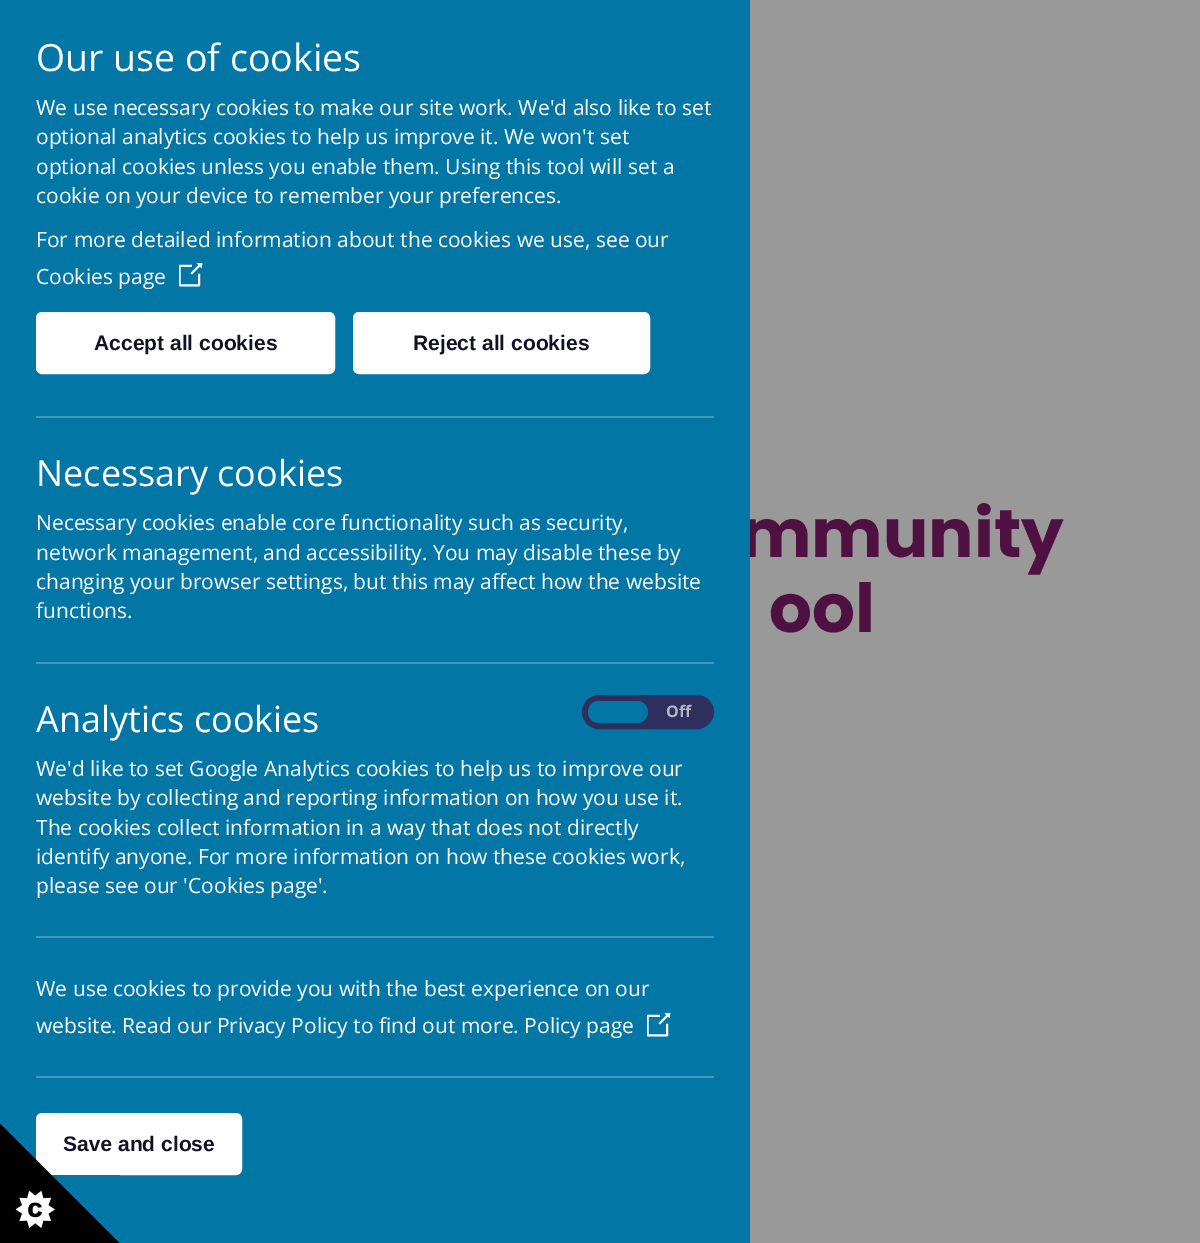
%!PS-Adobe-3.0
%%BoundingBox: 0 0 1200 1243
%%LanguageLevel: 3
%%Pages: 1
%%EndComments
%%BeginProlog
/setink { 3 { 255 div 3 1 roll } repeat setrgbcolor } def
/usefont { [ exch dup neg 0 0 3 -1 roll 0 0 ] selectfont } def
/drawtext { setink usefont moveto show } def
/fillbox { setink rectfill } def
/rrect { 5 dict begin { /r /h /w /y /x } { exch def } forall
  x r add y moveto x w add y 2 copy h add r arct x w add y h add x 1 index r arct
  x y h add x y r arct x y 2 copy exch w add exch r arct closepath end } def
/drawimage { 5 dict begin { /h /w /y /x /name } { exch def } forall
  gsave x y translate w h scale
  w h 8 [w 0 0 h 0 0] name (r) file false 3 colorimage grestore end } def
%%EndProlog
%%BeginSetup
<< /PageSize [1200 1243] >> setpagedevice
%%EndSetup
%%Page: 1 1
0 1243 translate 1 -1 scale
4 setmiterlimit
0 0 1200 1243 153 153 153 fillbox
(mmunity) 740 557 /Poppins-Bold 67.5 79 17 65 drawtext
0 0 750 1243 2 118 165 fillbox
(Our use of cookies) 36 71 /OpenSans-Regular 37.5 255 255 255 drawtext
(We use necessary cookies to make our site work. We'd also like to set) 36 115 /OpenSans-Regular 21 255 255 255 drawtext
(optional analytics cookies to help us improve it. We won't set) 36 144 /OpenSans-Regular 21 255 255 255 drawtext
(optional cookies unless you enable them. Using this tool will set a) 36 174 /OpenSans-Regular 21 255 255 255 drawtext
(cookie on your device to remember your preferences.) 36 203 /OpenSans-Regular 21 255 255 255 drawtext
(For more detailed information about the cookies we use, see our) 36 247 /OpenSans-Regular 21 255 255 255 drawtext
(Cookies page) 36 284 /OpenSans-Regular 21 255 255 255 drawtext
(assets/img1.rgb) 179 263 24 24 drawimage
37.5 313.5 296 59 4.5 rrect gsave fill grestore
3 setlinewidth
stroke
(Accept all cookies) 94 350 /LiberationSans-Bold 21 17 17 37 drawtext
255 255 255 setink
354.5 313.5 294 59 4.5 rrect gsave fill grestore
stroke
(Reject all cookies) 413 350 /LiberationSans-Bold 21 17 17 37 drawtext
36 416 678 2 65 152 188 fillbox
(Necessary cookies) 36 486 /OpenSans-Regular 36 255 255 255 drawtext
(Necessary cookies enable core functionality such as security,) 36 530 /OpenSans-Regular 21 255 255 255 drawtext
(network management, and accessibility. You may disable these by) 36 560 /OpenSans-Regular 21 255 255 255 drawtext
(changing your browser settings, but this may affect how the website) 36 589 /OpenSans-Regular 21 255 255 255 drawtext
(functions.) 36 618 /OpenSans-Regular 21 255 255 255 drawtext
36 662 678 2 65 152 188 fillbox
(Analytics cookies) 36 732 /OpenSans-Regular 36 255 255 255 drawtext
47 47 95 setink
585 698 126 28 14 rrect gsave fill grestore
6 setlinewidth
stroke
2 118 165 setink
588 701 60 22 11 rrect fill
(Off) 666 717 /OpenSans-Bold 16 182 182 199 drawtext
(We'd like to set Google Analytics cookies to help us to improve our) 36 776 /OpenSans-Regular 21 255 255 255 drawtext
(website by collecting and reporting information on how you use it.) 36 805 /OpenSans-Regular 21 255 255 255 drawtext
(The cookies collect information in a way that does not directly) 36 835 /OpenSans-Regular 21 255 255 255 drawtext
(identify anyone. For more information on how these cookies work,) 36 864 /OpenSans-Regular 21 255 255 255 drawtext
(please see our 'Cookies page'.) 36 893 /OpenSans-Regular 21 255 255 255 drawtext
36 936 678 2 65 152 188 fillbox
(We use cookies to provide you with the best experience on our) 36 996 /OpenSans-Regular 21 255 255 255 drawtext
(website. Read our Privacy Policy to find out more. Policy page) 36 1033 /OpenSans-Regular 21 255 255 255 drawtext
(assets/img1.rgb) 647 1013 24 24 drawimage
36 1076 678 2 65 152 188 fillbox
255 255 255 setink
37.5 1114.5 203 59 4.5 rrect gsave fill grestore
3 setlinewidth
stroke
(Save and close) 63 1151 /LiberationSans-Bold 21 17 17 37 drawtext
(assets/img2.rgb) 0 1124 120 119 drawimage
(ool) 769 632 /Poppins-Bold 67.5 79 17 65 drawtext
showpage
%%EOF
